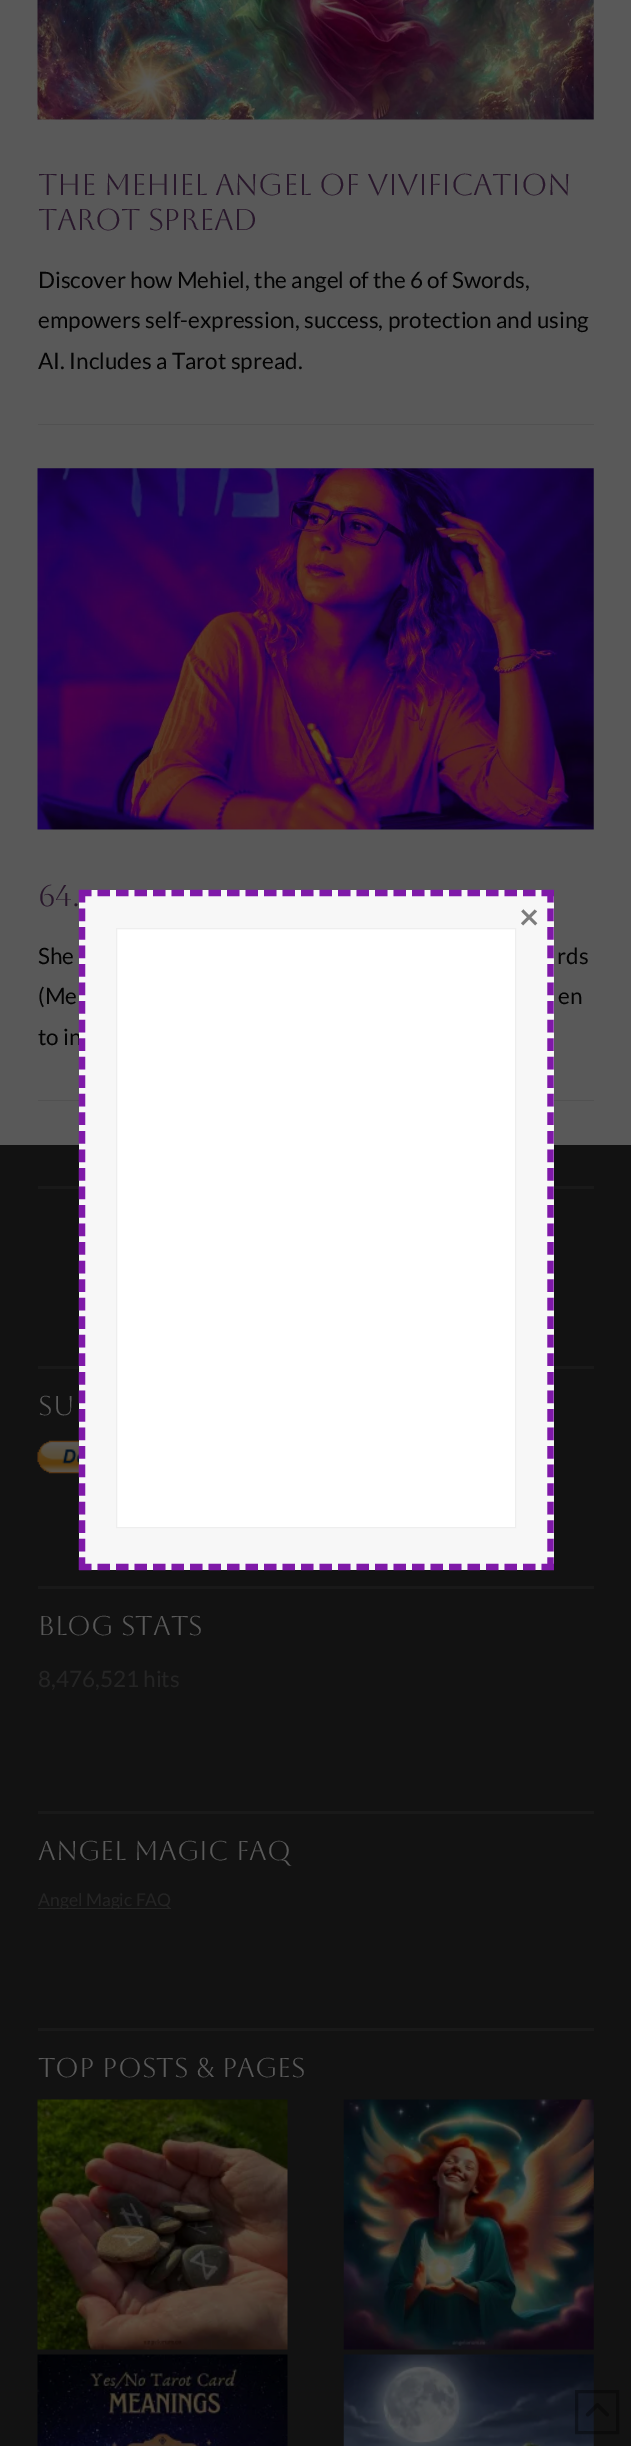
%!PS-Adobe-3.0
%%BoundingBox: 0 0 631 2446
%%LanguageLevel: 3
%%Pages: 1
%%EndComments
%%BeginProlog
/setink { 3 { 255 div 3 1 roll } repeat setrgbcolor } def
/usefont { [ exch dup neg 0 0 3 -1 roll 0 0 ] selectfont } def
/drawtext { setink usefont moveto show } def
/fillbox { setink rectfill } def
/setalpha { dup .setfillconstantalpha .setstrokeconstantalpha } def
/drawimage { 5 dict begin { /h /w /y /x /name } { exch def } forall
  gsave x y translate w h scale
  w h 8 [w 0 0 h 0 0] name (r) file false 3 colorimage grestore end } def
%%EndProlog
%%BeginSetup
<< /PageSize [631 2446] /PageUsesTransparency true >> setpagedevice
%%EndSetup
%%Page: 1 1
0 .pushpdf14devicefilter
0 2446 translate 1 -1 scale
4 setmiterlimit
0 0 631 2446 89 89 89 fillbox
(assets/img1.rgb) 37 0 557 120 drawimage
/Aboreto-Regular 30 usefont
40 23 43 setink
38 195 moveto -0.5 0 (The Mehiel Angel of Vivification) ashow
38 230 moveto -0.5 0 (Tarot Spread) ashow
(Discover how Mehiel, the angel of the 6 of Swords,) 38 288 /Lato-Regular 22.5 4 4 4 drawtext
(empowers self-expression, success, protection and using) 38 328 /Lato-Regular 22.5 4 4 4 drawtext
(AI. Includes a Tarot spread.) 38 369 /Lato-Regular 22.5 4 4 4 drawtext
38 424 556 1 81 81 81 fillbox
38 1100 556 1 81 81 81 fillbox
(assets/img2.rgb) 37 468 557 362 drawimage
/Aboreto-Regular 30 usefont
40 23 43 setink
38 906 moveto -0.5 0 (64.) ashow
(She) 38 964 /Lato-Regular 22.5 4 4 4 drawtext
(rds) 557 964 /Lato-Regular 22.5 4 4 4 drawtext
(\(Me) 38 1004 /Lato-Regular 22.5 4 4 4 drawtext
(en) 558 1004 /Lato-Regular 22.5 4 4 4 drawtext
(to in) 38 1045 /Lato-Regular 22.5 4 4 4 drawtext
0 1145 631 1301 18 18 18 fillbox
38 1186 556 3 25 25 25 fillbox
38 1366 556 3 25 25 25 fillbox
(Su) 38 1415 /Aboreto-Regular 27 89 89 89 drawtext
(assets/img3.rgb) 37 1440 42 34 drawimage
38 1586 556 3 25 25 25 fillbox
(Blog Stats) 38 1635 /Aboreto-Regular 27 89 89 89 drawtext
(8,476,521 hits) 38 1687 /Lato-Regular 22.5 36 36 36 drawtext
38 1811 556 3 25 25 25 fillbox
(Angel Magic FAQ) 38 1860 /Aboreto-Regular 27 89 89 89 drawtext
38 1908 133 1 36 36 36 fillbox
(Angel Magic FAQ) 38 1906 /Lato-Regular 17.5 36 36 36 drawtext
38 2028 556 3 25 25 25 fillbox
(Top Posts & Pages) 38 2077 /Aboreto-Regular 27 89 89 89 drawtext
(assets/img4.rgb) 37 2099 251 251 drawimage
(assets/img5.rgb) 343 2099 251 251 drawimage
(assets/img6.rgb) 37 2354 251 92 drawimage
(assets/img7.rgb) 343 2354 251 92 drawimage
0.38 setalpha
0 0 0 setink
3 setlinewidth
576.5 2391.5 41 41 rectstroke
1 setalpha
(assets/img8.rgb) 585 2403 24 14 drawimage
79 890 475 680 247 247 247 fillbox
127 25 168 setink
6.2 setlinewidth
[12.5 6] 0 setdash
79 893 moveto 554 893 lineto stroke
[12.5 6.04] 0 setdash
550.5 890 moveto 550.5 1570 lineto stroke
[12.5 6] 0 setdash
79 1567 moveto 554 1567 lineto stroke
[12.5 6.04] 0 setdash
82 890 moveto 82 1570 lineto stroke
(×) 519 929 /Lato-Bold 35 124 124 124 drawtext
255 255 255 setink
116.5 928.5 moveto 515.5 928.5 lineto 515.5 1527.5 lineto 116.5 1527.5 lineto closepath gsave fill grestore
238 238 238 setink
1 setlinewidth
[] 0 setdash
stroke
.poppdf14devicefilter showpage
%%EOF
